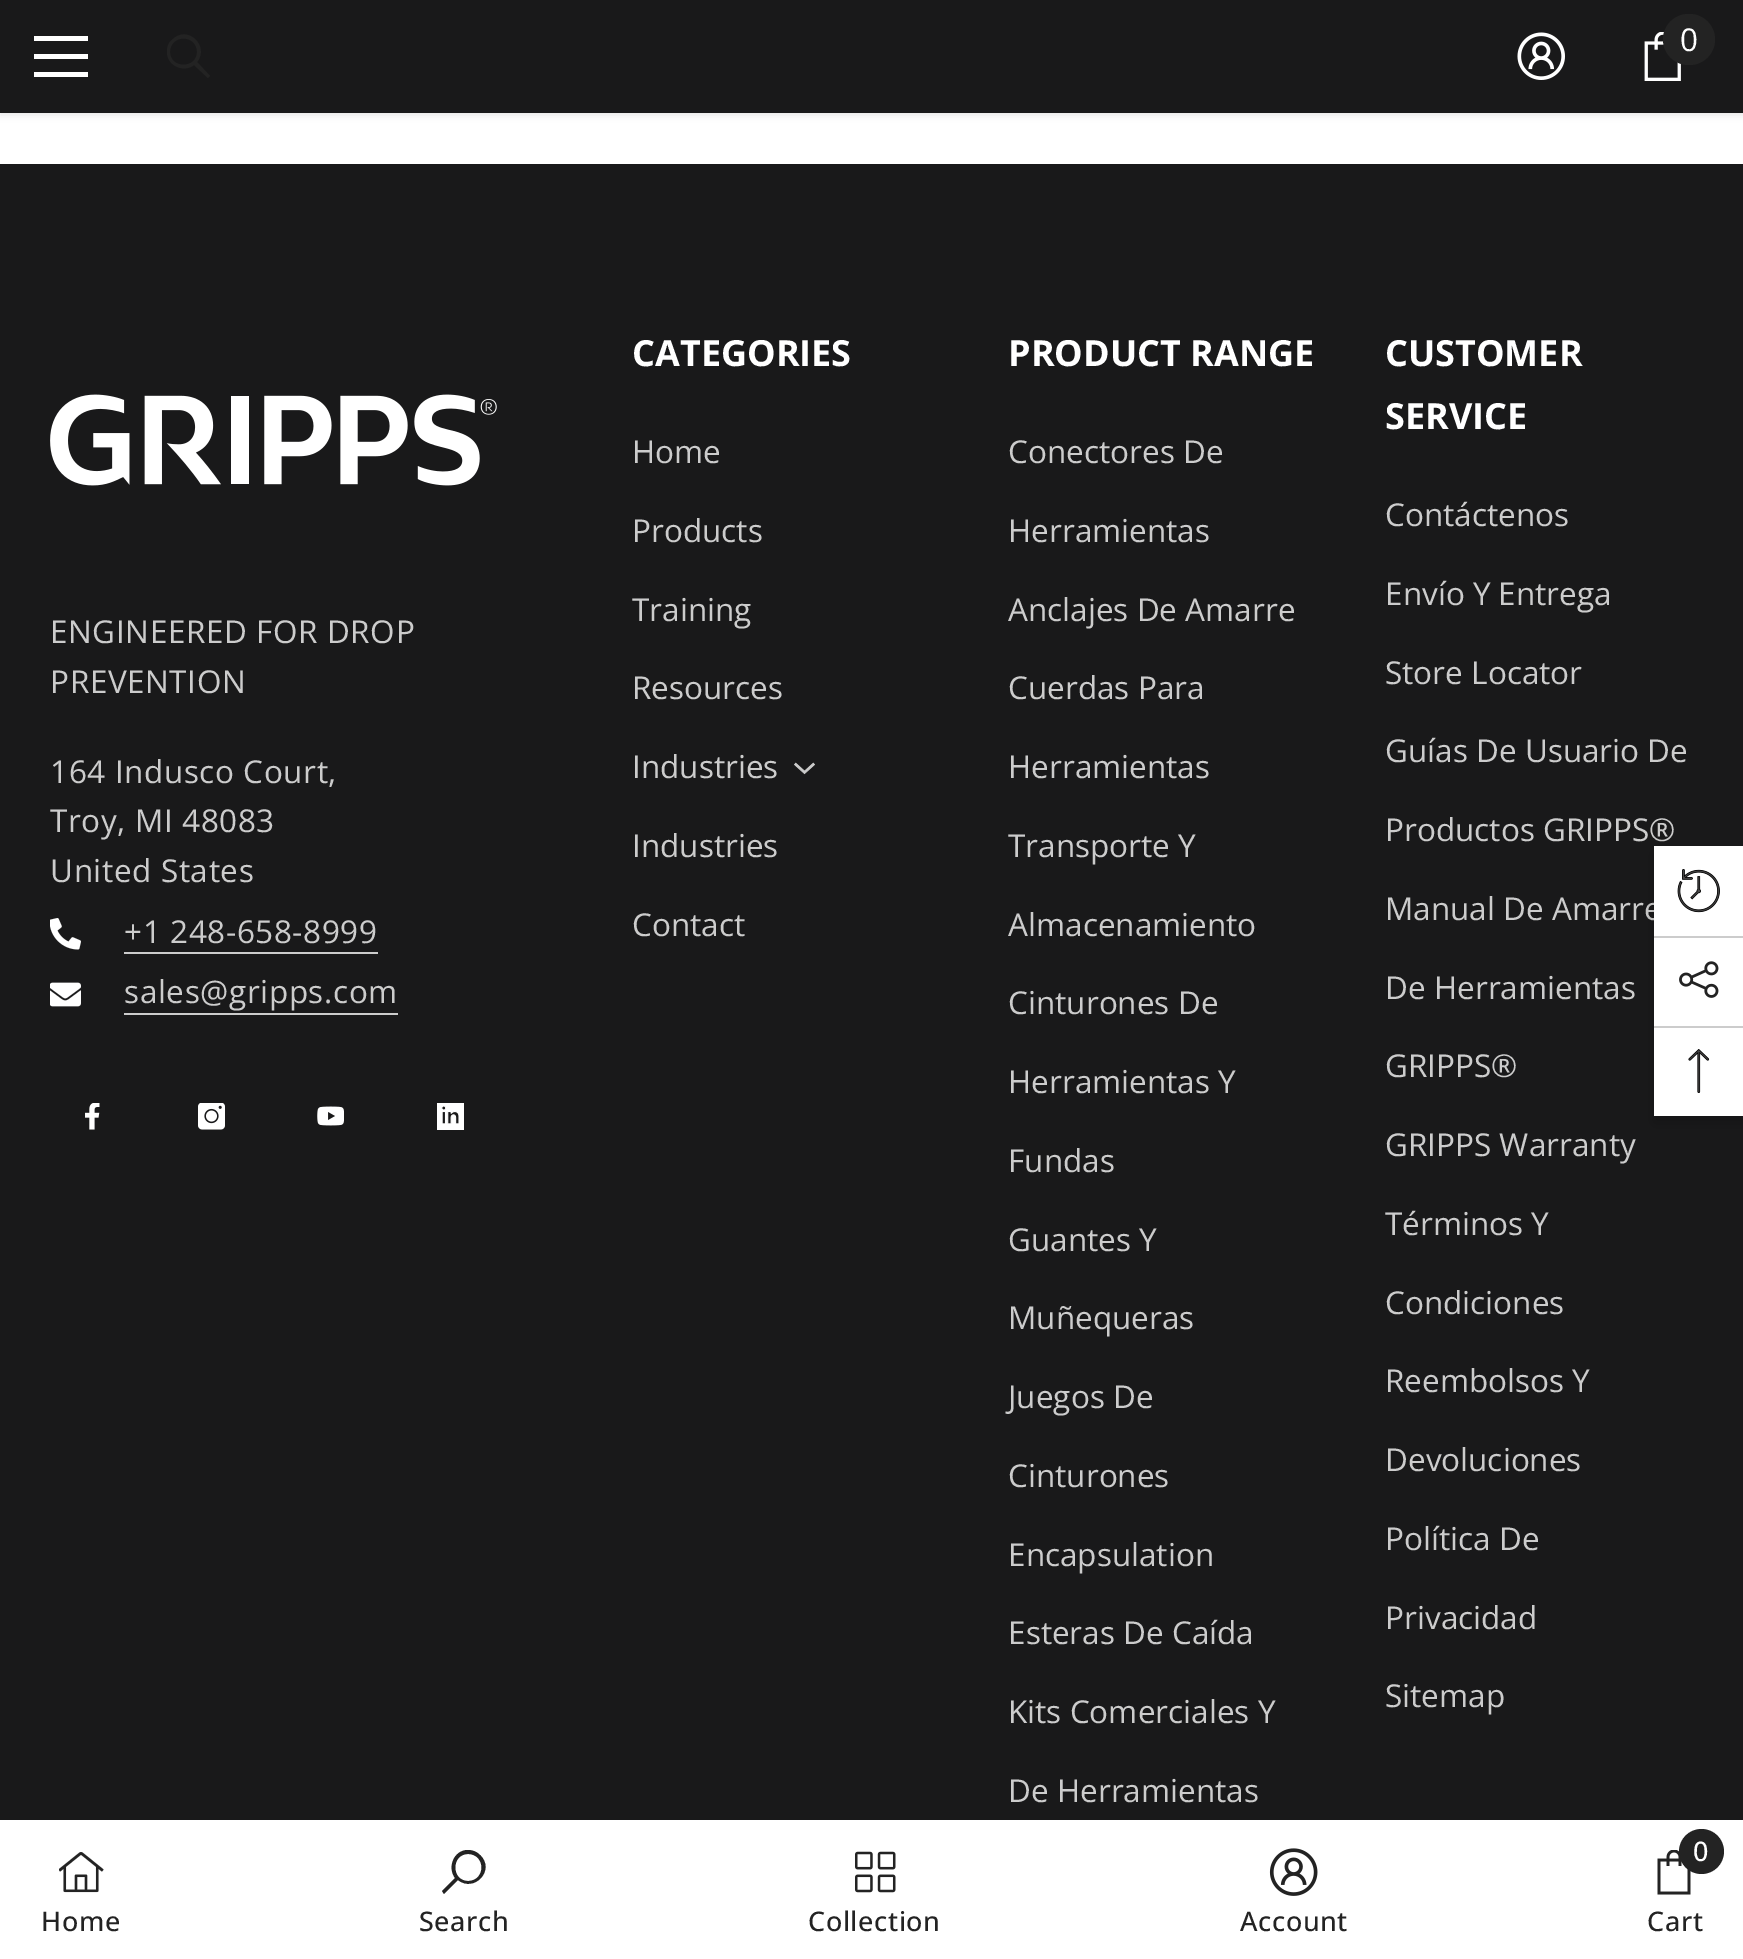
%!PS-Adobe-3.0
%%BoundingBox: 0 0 1743 1959
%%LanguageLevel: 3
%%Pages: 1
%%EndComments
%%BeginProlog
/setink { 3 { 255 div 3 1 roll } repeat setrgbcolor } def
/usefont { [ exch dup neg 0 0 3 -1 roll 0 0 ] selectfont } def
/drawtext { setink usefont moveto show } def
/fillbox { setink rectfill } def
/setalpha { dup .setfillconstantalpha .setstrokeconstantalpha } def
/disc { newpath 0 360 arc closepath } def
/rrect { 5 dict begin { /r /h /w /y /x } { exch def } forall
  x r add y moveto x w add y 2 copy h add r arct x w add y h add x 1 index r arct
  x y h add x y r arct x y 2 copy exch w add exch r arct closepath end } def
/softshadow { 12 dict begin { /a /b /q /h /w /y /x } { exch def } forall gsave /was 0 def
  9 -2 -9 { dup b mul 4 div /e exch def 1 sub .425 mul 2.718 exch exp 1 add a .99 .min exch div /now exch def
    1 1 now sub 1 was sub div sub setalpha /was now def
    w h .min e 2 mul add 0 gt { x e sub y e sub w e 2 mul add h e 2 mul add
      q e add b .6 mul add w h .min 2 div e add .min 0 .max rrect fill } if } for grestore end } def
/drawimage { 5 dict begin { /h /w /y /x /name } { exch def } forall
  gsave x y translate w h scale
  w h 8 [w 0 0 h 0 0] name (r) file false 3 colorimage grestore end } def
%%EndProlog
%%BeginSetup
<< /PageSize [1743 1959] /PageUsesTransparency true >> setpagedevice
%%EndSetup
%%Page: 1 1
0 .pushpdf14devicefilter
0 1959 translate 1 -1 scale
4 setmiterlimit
0 0 1743 1959 255 255 255 fillbox
0 0 0 setink
0 2 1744 113 0 3.5 0.1 softshadow
0 0 1743 113 25 25 26 fillbox
34 54 54 5 255 255 255 fillbox
34 36 54 5 255 255 255 fillbox
34 72 54 5 255 255 255 fillbox
35 35 35 setink
167 52 moveto 167 66 184 73 194 65 curveto 208 78 lineto 210 76 lineto 197 62 lineto 210 46 187 24 172 40 curveto 168 43 167 47 167 52 curveto closepath 170 52 moveto 170 34 197 34 197 52 curveto 197 69 170 69 170 52 curveto closepath fill
(assets/img1.rgb) 1517 32 48 48 drawimage
(assets/img2.rgb) 1644 32 37 49 drawimage
1663 14 52 51 25.5 rrect fill
(0) 1680 51 /OpenSans-Regular 31.5 255 255 255 drawtext
0 164 1743 1656 25 25 26 fillbox
(assets/img3.rgb) 50 394 447 92 drawimage
204 204 204 setink
50 643 moveto 0.6 0 (ENGINEERED FOR DROP) ashow
50 693 moveto 0.6 0 (PREVENTION) ashow
50 783 moveto 0.6 0 (164 Indusco Court,) ashow
50 832 moveto 0.6 0 (Troy, MI 48083) ashow
50 882 moveto 0.6 0 (United States) ashow
(assets/img4.rgb) 50 918 31 32 drawimage
124 943 moveto 0.6 0 (+1 248-658-8999) ashow
124 952 254 2 204 204 204 fillbox
(assets/img5.rgb) 50 982 31 25 drawimage
124 1003 moveto 0.6 0 (sales@gripps.com) ashow
124 1013 274 2 204 204 204 fillbox
(assets/img6.rgb) 85 1103 15 27 drawimage
(assets/img7.rgb) 198 1103 27 27 drawimage
(assets/img8.rgb) 317 1106 27 20 drawimage
(assets/img9.rgb) 437 1103 27 27 drawimage
(CATEGORIES) 632 366 /OpenSans-Bold 36 255 255 255 drawtext
(Home) 632 463 /OpenSans-Regular 31.5 204 204 204 drawtext
(Products) 632 542 /OpenSans-Regular 31.5 204 204 204 drawtext
(Training) 632 621 /OpenSans-Regular 31.5 204 204 204 drawtext
(Resources) 632 699 /OpenSans-Regular 31.5 204 204 204 drawtext
(Industries) 632 778 /OpenSans-Regular 31.5 204 204 204 drawtext
(assets/img10.rgb) 794 762 21 13 drawimage
(Industries) 632 857 /OpenSans-Regular 31.5 204 204 204 drawtext
(Contact) 632 936 /OpenSans-Regular 31.5 204 204 204 drawtext
(PRODUCT RANGE) 1008 366 /OpenSans-Bold 36 255 255 255 drawtext
(Conectores De) 1008 463 /OpenSans-Regular 31.5 204 204 204 drawtext
(Herramientas) 1008 542 /OpenSans-Regular 31.5 204 204 204 drawtext
(Anclajes De Amarre) 1008 621 /OpenSans-Regular 31.5 204 204 204 drawtext
(Cuerdas Para) 1008 699 /OpenSans-Regular 31.5 204 204 204 drawtext
(Herramientas) 1008 778 /OpenSans-Regular 31.5 204 204 204 drawtext
(Transporte Y) 1008 857 /OpenSans-Regular 31.5 204 204 204 drawtext
(Almacenamiento) 1008 936 /OpenSans-Regular 31.5 204 204 204 drawtext
(Cinturones De) 1008 1014 /OpenSans-Regular 31.5 204 204 204 drawtext
(Herramientas Y) 1008 1093 /OpenSans-Regular 31.5 204 204 204 drawtext
(Fundas) 1008 1172 /OpenSans-Regular 31.5 204 204 204 drawtext
(Guantes Y) 1008 1251 /OpenSans-Regular 31.5 204 204 204 drawtext
(Muñequeras) 1008 1329 /OpenSans-Regular 31.5 204 204 204 drawtext
(Juegos De) 1008 1408 /OpenSans-Regular 31.5 204 204 204 drawtext
(Cinturones) 1008 1487 /OpenSans-Regular 31.5 204 204 204 drawtext
(Encapsulation) 1008 1566 /OpenSans-Regular 31.5 204 204 204 drawtext
(Esteras De Caída) 1008 1644 /OpenSans-Regular 31.5 204 204 204 drawtext
(Kits Comerciales Y) 1008 1723 /OpenSans-Regular 31.5 204 204 204 drawtext
(De Herramientas) 1008 1802 /OpenSans-Regular 31.5 204 204 204 drawtext
(CUSTOMER) 1385 366 /OpenSans-Bold 36 255 255 255 drawtext
(SERVICE) 1385 429 /OpenSans-Bold 36 255 255 255 drawtext
(Contáctenos) 1385 526 /OpenSans-Regular 31.5 204 204 204 drawtext
(Envío Y Entrega) 1385 605 /OpenSans-Regular 31.5 204 204 204 drawtext
(Store Locator) 1385 684 /OpenSans-Regular 31.5 204 204 204 drawtext
(Guías De Usuario De) 1385 762 /OpenSans-Regular 31.5 204 204 204 drawtext
(Productos GRIPPS®) 1385 841 /OpenSans-Regular 31.5 204 204 204 drawtext
(Manual De Amarre) 1385 920 /OpenSans-Regular 31.5 204 204 204 drawtext
(De Herramientas) 1385 999 /OpenSans-Regular 31.5 204 204 204 drawtext
(GRIPPS®) 1385 1077 /OpenSans-Regular 31.5 204 204 204 drawtext
(GRIPPS Warranty) 1385 1156 /OpenSans-Regular 31.5 204 204 204 drawtext
(Términos Y) 1385 1235 /OpenSans-Regular 31.5 204 204 204 drawtext
(Condiciones) 1385 1314 /OpenSans-Regular 31.5 204 204 204 drawtext
(Reembolsos Y) 1385 1392 /OpenSans-Regular 31.5 204 204 204 drawtext
(Devoluciones) 1385 1471 /OpenSans-Regular 31.5 204 204 204 drawtext
(Política De) 1385 1550 /OpenSans-Regular 31.5 204 204 204 drawtext
(Privacidad) 1385 1629 /OpenSans-Regular 31.5 204 204 204 drawtext
(Sitemap) 1385 1707 /OpenSans-Regular 31.5 204 204 204 drawtext
(assets/img11.rgb) 59 1852 45 41 drawimage
/OpenSans-Medium 27 usefont
35 35 35 setink
41 1931 moveto 0.6 0 (Home) ashow
468 1850 moveto 454 1850 447 1867 455 1878 curveto 442 1891 lineto 444 1894 lineto 458 1880 lineto 474 1893 496 1870 480 1855 curveto 477 1852 473 1850 468 1850 curveto closepath 468 1854 moveto 486 1854 486 1881 468 1881 curveto 451 1881 451 1854 468 1854 curveto closepath fill
419 1931 moveto 0.6 0 (Search) ashow
(assets/img12.rgb) 855 1851 41 42 drawimage
808 1931 moveto 0.6 0 (Collection) ashow
(assets/img13.rgb) 1269 1848 49 48 drawimage
1240 1931 moveto 0.6 0 (Account) ashow
(assets/img14.rgb) 1657 1850 34 45 drawimage
1701.5 1851.5 22.5 disc fill
(0) 1693 1861 /OpenSans-Medium 27 255 255 255 drawtext
35 35 35 setink
1647 1931 moveto 0.6 0 (Cart) ashow
0 0 0 setink
1654 853 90 270 0 8 0.2 softshadow
1654 846 89 270 255 255 255 fillbox
(assets/img15.rgb) 1677 869 43 44 drawimage
1654 936 89 2 204 204 204 fillbox
(assets/img16.rgb) 1679 961 40 37 drawimage
1654 1026 89 2 204 204 204 fillbox
(assets/img17.rgb) 1688 1049 22 44 drawimage
.poppdf14devicefilter showpage
%%EOF
